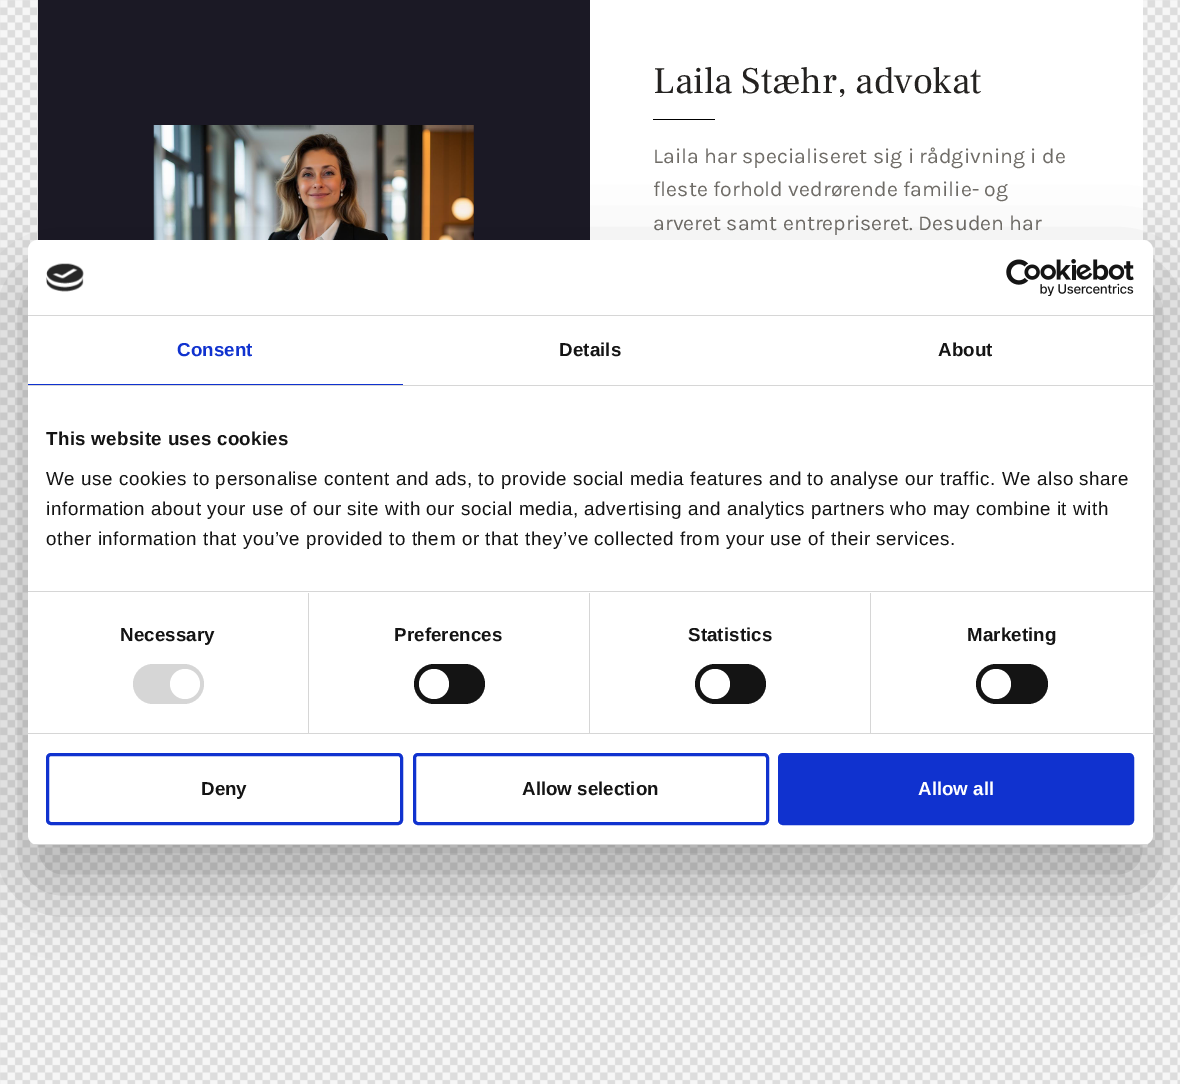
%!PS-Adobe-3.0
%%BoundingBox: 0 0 1180 1084
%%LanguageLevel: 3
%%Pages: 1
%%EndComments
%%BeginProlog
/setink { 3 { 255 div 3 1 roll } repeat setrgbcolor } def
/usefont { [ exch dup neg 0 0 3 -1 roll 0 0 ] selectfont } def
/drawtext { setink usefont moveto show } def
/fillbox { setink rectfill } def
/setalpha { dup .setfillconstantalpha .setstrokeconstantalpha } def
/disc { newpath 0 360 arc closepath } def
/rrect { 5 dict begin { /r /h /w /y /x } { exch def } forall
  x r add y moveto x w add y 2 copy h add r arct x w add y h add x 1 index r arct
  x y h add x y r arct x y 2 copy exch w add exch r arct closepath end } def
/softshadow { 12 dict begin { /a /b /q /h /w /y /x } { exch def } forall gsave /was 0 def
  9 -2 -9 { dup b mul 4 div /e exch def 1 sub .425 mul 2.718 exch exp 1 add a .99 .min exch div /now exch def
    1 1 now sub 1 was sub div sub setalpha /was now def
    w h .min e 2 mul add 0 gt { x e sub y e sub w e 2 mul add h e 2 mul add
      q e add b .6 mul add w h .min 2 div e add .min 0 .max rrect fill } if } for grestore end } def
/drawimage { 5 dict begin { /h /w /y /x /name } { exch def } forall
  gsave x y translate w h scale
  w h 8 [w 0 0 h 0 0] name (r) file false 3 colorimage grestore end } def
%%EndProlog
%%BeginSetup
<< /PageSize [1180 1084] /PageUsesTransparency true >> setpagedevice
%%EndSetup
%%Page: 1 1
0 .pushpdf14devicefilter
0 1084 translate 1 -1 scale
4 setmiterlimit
0 0 1180 1084 255 255 255 fillbox
(assets/img1.rgb) 0 0 1180 1084 drawimage
38 0 552 240 27 25 37 fillbox
(assets/img2.rgb) 153 125 321 115 drawimage
590 0 553 240 255 255 255 fillbox
/FrankRuhlLibre-Regular 37.5 usefont
36 34 32 setink
653 93 moveto -0.1 0 (Laila Stæhr, advokat) ashow
653 119 62 1 0 0 0 fillbox
/Karla-Regular 21.25 usefont
111 108 103 setink
653 163 moveto 0.1 0 (Laila har specialiseret sig i rådgivning i de) ashow
653 196 moveto 0.1 0 (fleste forhold vedrørende familie- og) ashow
653 230 moveto 0.1 0 (arveret samt entrepriseret. Desuden har) ashow
0 0 0 setink
28 280 1125 605 10 42.5 0.3 softshadow
255 255 255 setink
28 240 1125 605 10 rrect fill
28 315 1125 1 214 214 214 fillbox
(assets/img3.rgb) 46 263 38 29 drawimage
(assets/img4.rgb) 1006 259 128 37 drawimage
28 385 1125 1 214 214 214 fillbox
28 384 375 1 16 50 207 fillbox
/LiberationSans-Bold 18.75 usefont
177 356 moveto 0.1 0 (Consent) ashow
20 20 20 setink
559 356 moveto 0.1 0 (Details) ashow
938 356 moveto 0.1 0 (About) ashow
28 591 1125 1 214 214 214 fillbox
20 20 20 setink
46 445 moveto 0.3 0 (This website uses cookies) ashow
/LiberationSans-Regular 18.75 usefont
46 485 moveto 0.62 0 (We use cookies to personalise content and ads, to provide social media features and to analyse our traffic. We also share) ashow
46 515 moveto 0.62 0 (information about your use of our site with our social media, advertising and analytics partners who may combine it with) ashow
46 545 moveto 0.62 0 (other information that you’ve provided to them or that they’ve collected from your use of their services.) ashow
28 733 1125 1 214 214 214 fillbox
308 593 1 140 214 214 214 fillbox
/LiberationSans-Bold 18.75 usefont
20 20 20 setink
120 641 moveto 0.1 0 (Necessary) ashow
214 214 214 setink
133 664 71 40 20 rrect fill
255 255 255 setink
185 684 15 disc fill
589 593 1 140 214 214 214 fillbox
20 20 20 setink
394 641 moveto 0.1 0 (Preferences) ashow
414 664 71 40 20 rrect fill
255 255 255 setink
434 684 15 disc fill
870 593 1 140 214 214 214 fillbox
20 20 20 setink
688 641 moveto 0.1 0 (Statistics) ashow
695 664 71 40 20 rrect fill
255 255 255 setink
715 684 15 disc fill
20 20 20 setink
967 641 moveto 0.1 0 (Marketing) ashow
976 664 72 40 20 rrect fill
255 255 255 setink
996 684 15 disc fill
gsave
28 240 1125 605 10 rrect clip newpath
28 844 1125 1 214 214 214 fillbox
grestore
16 50 207 setink
3 setlinewidth
47.5 754.5 354 69 3.5 rrect stroke
(Deny) 201 795 /LiberationSans-Bold 18.75 20 20 20 drawtext
16 50 207 setink
414.5 754.5 353 69 3.5 rrect stroke
(Allow selection) 522 795 /LiberationSans-Bold 18.75 20 20 20 drawtext
16 50 207 setink
779.5 754.5 353 69 3.5 rrect gsave fill grestore
stroke
(Allow all) 918 795 /LiberationSans-Bold 18.75 255 255 255 drawtext
.poppdf14devicefilter showpage
%%EOF
